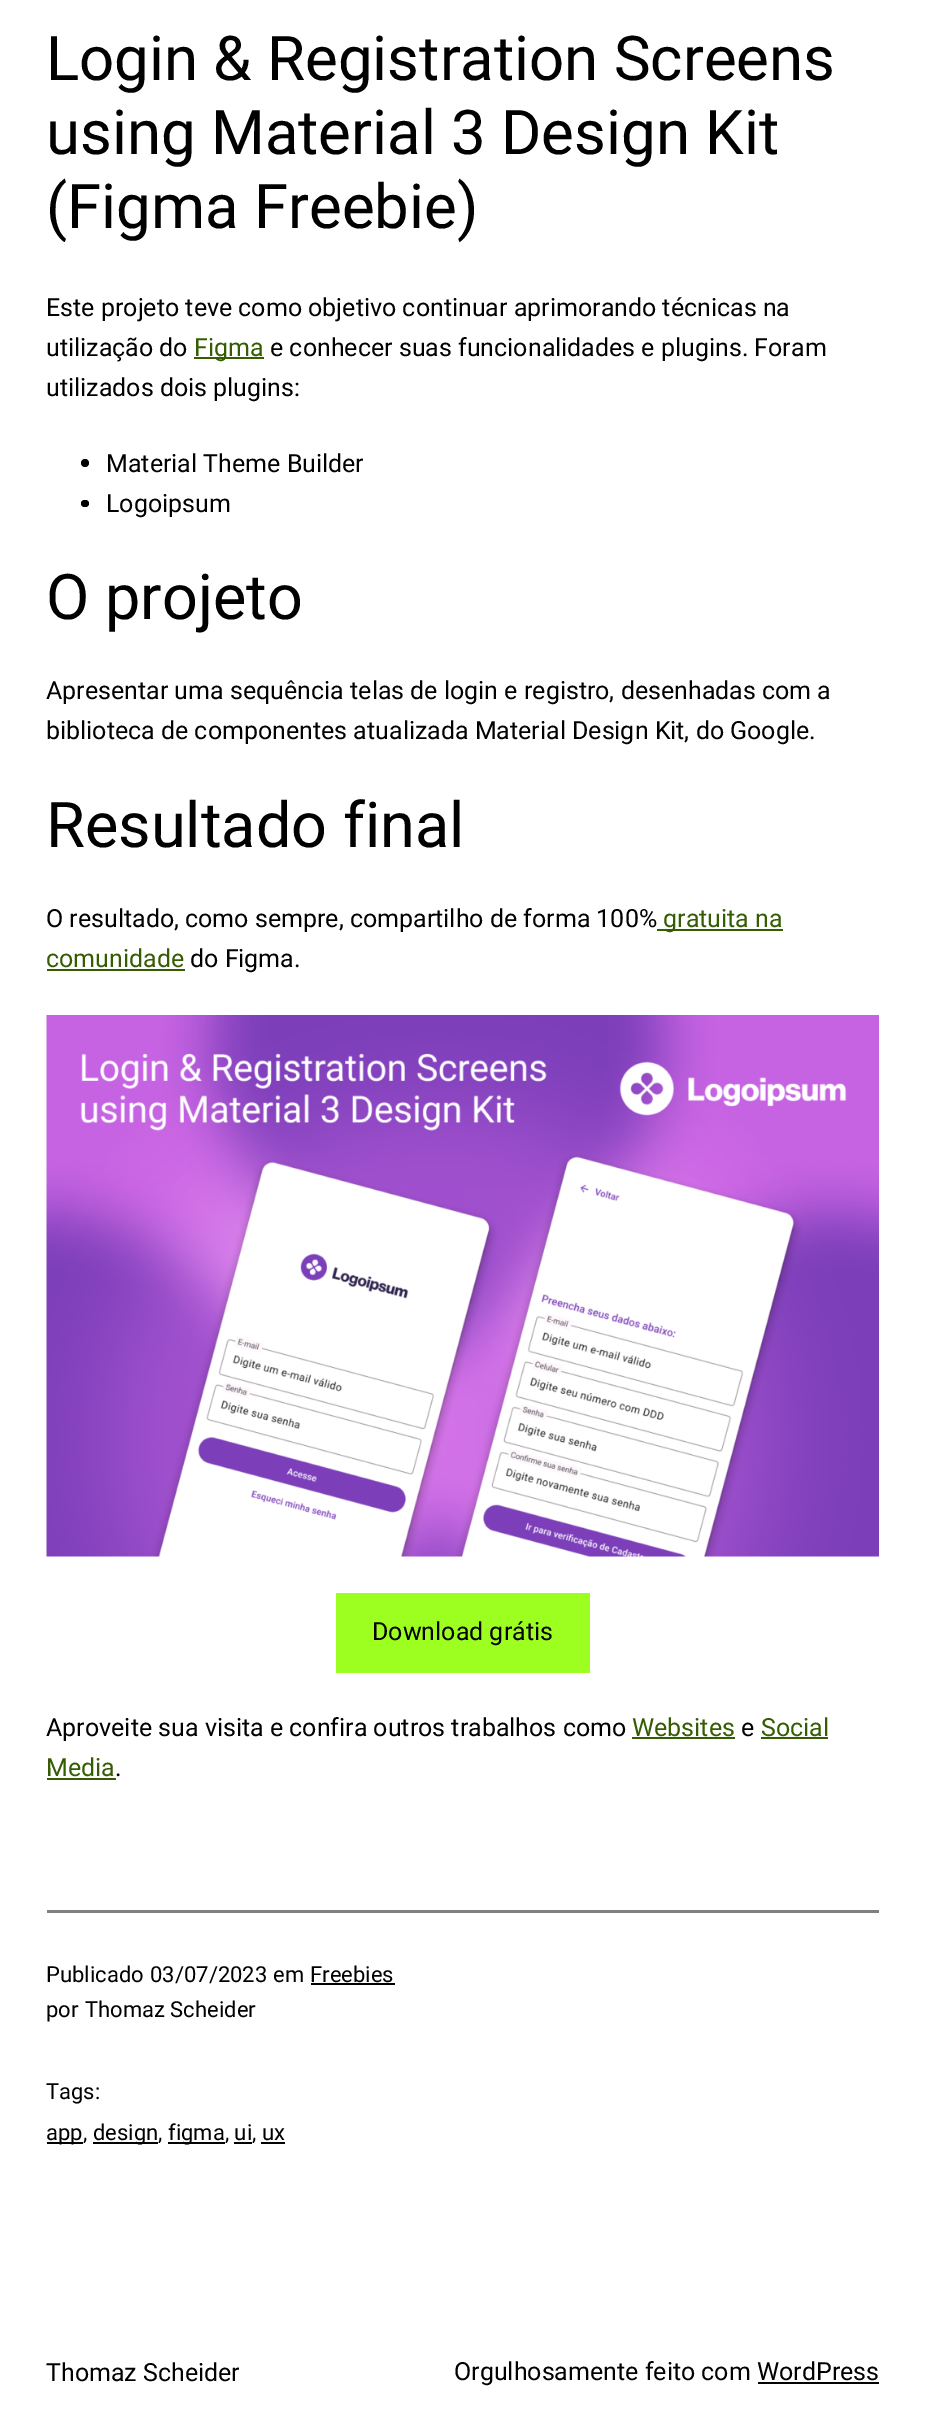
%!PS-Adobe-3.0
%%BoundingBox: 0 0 925 2435
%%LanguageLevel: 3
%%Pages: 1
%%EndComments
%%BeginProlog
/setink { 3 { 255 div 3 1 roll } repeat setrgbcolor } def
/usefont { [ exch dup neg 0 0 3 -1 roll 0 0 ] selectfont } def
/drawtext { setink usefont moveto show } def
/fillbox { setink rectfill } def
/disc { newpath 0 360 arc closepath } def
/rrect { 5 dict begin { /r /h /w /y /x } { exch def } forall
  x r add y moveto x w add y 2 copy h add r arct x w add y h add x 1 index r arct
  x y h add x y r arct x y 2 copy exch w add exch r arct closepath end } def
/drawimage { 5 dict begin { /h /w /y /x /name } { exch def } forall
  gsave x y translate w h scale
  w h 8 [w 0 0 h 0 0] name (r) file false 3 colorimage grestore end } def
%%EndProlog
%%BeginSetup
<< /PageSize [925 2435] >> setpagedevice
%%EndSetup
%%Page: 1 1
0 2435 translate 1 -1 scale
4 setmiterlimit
0 0 925 2435 255 255 255 fillbox
(Login & Registration Screens) 46 80 /Roboto-Regular 61.7 0 0 0 drawtext
(using Material 3 Design Kit) 46 154 /Roboto-Regular 61.7 0 0 0 drawtext
(\(Figma Freebie\)) 46 228 /Roboto-Regular 61.7 0 0 0 drawtext
(Este projeto teve como objetivo continuar aprimorando técnicas na) 46 316 /Roboto-Regular 25 0 0 0 drawtext
(utilização do) 46 356 /Roboto-Regular 25 0 0 0 drawtext
194 357 70 2 52 92 0 fillbox
(Figma) 194 356 /Roboto-Regular 25 52 92 0 drawtext
(e conhecer suas funcionalidades e plugins. Foram) 270 356 /Roboto-Regular 25 0 0 0 drawtext
(utilizados dois plugins:) 46 396 /Roboto-Regular 25 0 0 0 drawtext
85 463 4 disc fill
(Material Theme Builder) 106 472 /Roboto-Regular 25 0 0 0 drawtext
81 500 8 7 3.5 rrect fill
(Logoipsum) 106 512 /Roboto-Regular 25 0 0 0 drawtext
(O projeto) 46 619 /Roboto-Regular 63 0 0 0 drawtext
(Apresentar uma sequência telas de login e registro, desenhadas com a) 46 699 /Roboto-Regular 25 0 0 0 drawtext
(biblioteca de componentes atualizada Material Design Kit, do Google.) 46 739 /Roboto-Regular 25 0 0 0 drawtext
(Resultado final) 46 847 /Roboto-Regular 63 0 0 0 drawtext
(O resultado, como sempre, compartilho de forma 100%) 46 927 /Roboto-Regular 25 0 0 0 drawtext
657 929 126 2 52 92 0 fillbox
(gratuita na) 663 927 /Roboto-Regular 25 52 92 0 drawtext
(comunidade) 46 967 /Roboto-Regular 25 52 92 0 drawtext
47 969 138 2 52 92 0 fillbox
(do Figma.) 190 967 /Roboto-Regular 25 0 0 0 drawtext
(assets/img1.rgb) 46 1015 833 542 drawimage
336 1593 254 80 157 255 32 fillbox
(Download grátis) 372 1640 /Roboto-Regular 25 0 0 0 drawtext
(Aproveite sua visita e confira outros trabalhos como) 46 1736 /Roboto-Regular 25 0 0 0 drawtext
(Websites) 632 1736 /Roboto-Regular 25 52 92 0 drawtext
632 1737 103 2 52 92 0 fillbox
(e) 741 1736 /Roboto-Regular 25 0 0 0 drawtext
(Social) 761 1736 /Roboto-Regular 25 52 92 0 drawtext
761 1737 67 2 52 92 0 fillbox
(Media) 46 1776 /Roboto-Regular 25 52 92 0 drawtext
47 1778 69 2 52 92 0 fillbox
(.) 115 1776 /Roboto-Regular 25 0 0 0 drawtext
47 1910 832 3 128 128 128 fillbox
(Publicado) 46 1982 /Roboto-Regular 22 0 0 0 drawtext
(03/07/2023) 150 1982 /Roboto-Regular 22 0 0 0 drawtext
(em) 273 1982 /Roboto-Regular 22 0 0 0 drawtext
(Freebies) 310 1982 /Roboto-Regular 22 0 0 0 drawtext
311 1983 84 2 0 0 0 fillbox
(por) 46 2017 /Roboto-Regular 22 0 0 0 drawtext
(Thomaz Scheider) 85 2017 /Roboto-Regular 22 0 0 0 drawtext
(Tags:) 46 2099 /Roboto-Regular 22 0 0 0 drawtext
47 2142 36 2 0 0 0 fillbox
(app,) 46 2140 /Roboto-Regular 22 0 0 0 drawtext
93 2142 65 2 0 0 0 fillbox
(design,) 93 2140 /Roboto-Regular 22 0 0 0 drawtext
168 2142 57 2 0 0 0 fillbox
(figma, ui) 168 2140 /Roboto-Regular 22 0 0 0 drawtext
234 2142 18 2 0 0 0 fillbox
(, ux) 252 2140 /Roboto-Regular 22 0 0 0 drawtext
261 2142 24 2 0 0 0 fillbox
(Thomaz Scheider) 46 2381 /Roboto-Regular 25 0 0 0 drawtext
(Orgulhosamente feito com) 454 2380 /Roboto-Regular 25 0 0 0 drawtext
(WordPress) 757 2380 /Roboto-Regular 25 0 0 0 drawtext
758 2382 121 2 0 0 0 fillbox
showpage
%%EOF
